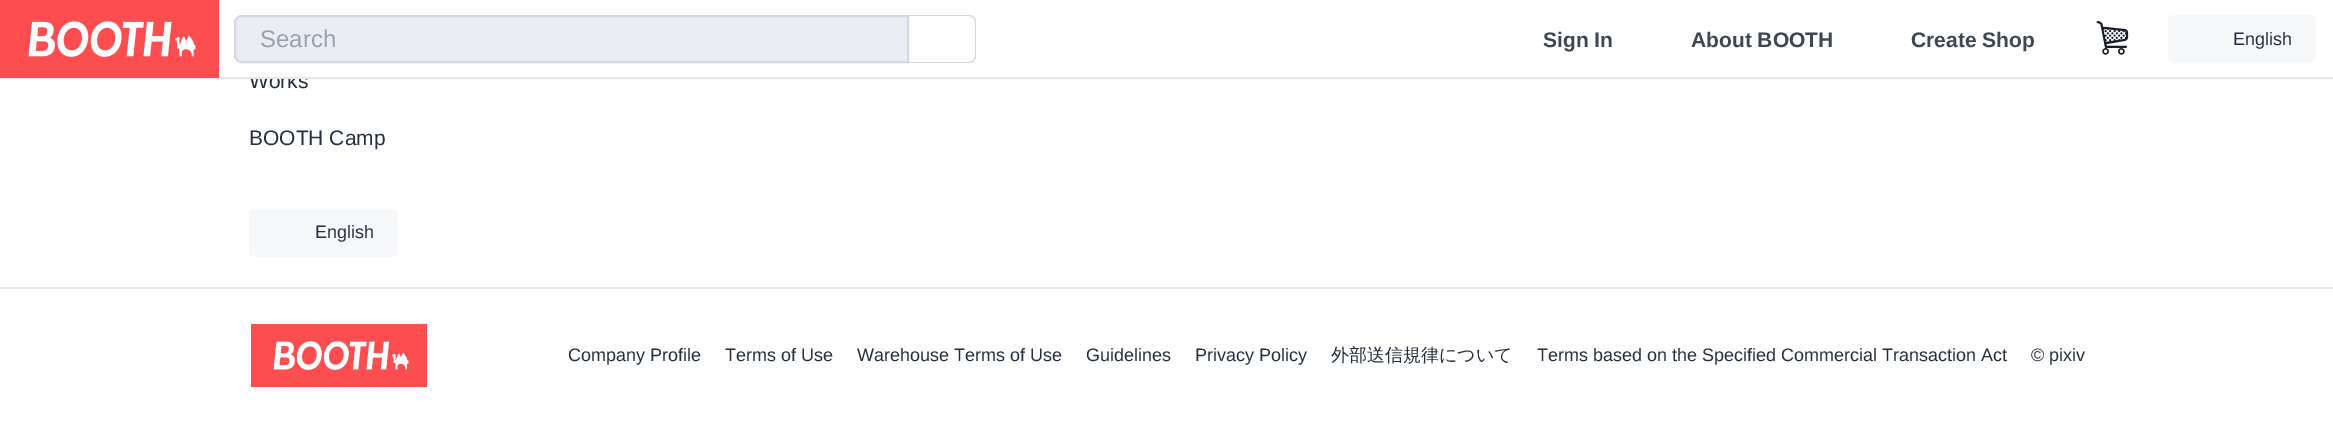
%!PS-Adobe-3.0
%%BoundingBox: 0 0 2333 422
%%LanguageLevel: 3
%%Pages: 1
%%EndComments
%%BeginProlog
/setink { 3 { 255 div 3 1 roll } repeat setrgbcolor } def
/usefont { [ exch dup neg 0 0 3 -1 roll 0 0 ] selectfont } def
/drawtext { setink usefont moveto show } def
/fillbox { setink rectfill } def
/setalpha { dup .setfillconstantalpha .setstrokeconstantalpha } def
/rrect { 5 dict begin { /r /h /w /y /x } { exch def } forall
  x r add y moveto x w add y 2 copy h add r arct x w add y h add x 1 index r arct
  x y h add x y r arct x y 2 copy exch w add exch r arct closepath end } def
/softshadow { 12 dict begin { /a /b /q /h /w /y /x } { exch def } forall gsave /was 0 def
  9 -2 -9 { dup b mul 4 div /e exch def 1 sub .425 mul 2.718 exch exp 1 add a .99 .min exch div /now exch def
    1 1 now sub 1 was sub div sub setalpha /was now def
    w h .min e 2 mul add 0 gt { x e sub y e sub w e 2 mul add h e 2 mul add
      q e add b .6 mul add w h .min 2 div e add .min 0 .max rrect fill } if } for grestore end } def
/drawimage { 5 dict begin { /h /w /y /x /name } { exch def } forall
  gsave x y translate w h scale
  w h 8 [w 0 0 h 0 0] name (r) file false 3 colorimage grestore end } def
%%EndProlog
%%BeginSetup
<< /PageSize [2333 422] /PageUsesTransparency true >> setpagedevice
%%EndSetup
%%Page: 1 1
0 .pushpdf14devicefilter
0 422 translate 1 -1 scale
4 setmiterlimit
0 0 2333 422 255 255 255 fillbox
230 232 235 setink
0 0 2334 78 0 1.5 1 softshadow
(Works) 249 88 /LiberationSans-Regular 21 37 47 61 drawtext
219 0 2114 77 255 255 255 fillbox
0 77 2333 2 230 232 235 fillbox
(assets/img1.rgb) 0 0 219 78 drawimage
235 237 242 setink
242 16 moveto 908 16 lineto 908 62 lineto 242 62 lineto 238 62 235 59 235 55 curveto 235 23 lineto 235 19 238 16 242 16 curveto closepath gsave fill grestore
213 217 222 setink
2 setlinewidth
stroke
(Search) 260 47 /LiberationSans-Regular 24 150 162 176 drawtext
213 217 222 setink
909 15 moveto 969 15 lineto 973 15 976 18 976 22 curveto 976 56 lineto 976 60 973 63 969 63 curveto 909 63 lineto closepath 909 16 moveto 969 16 lineto 972 16 975 19 975 22 curveto 975 56 lineto 975 59 972 62 969 62 curveto 909 62 lineto closepath eofill
(Sign In) 1543 47 /LiberationSans-Bold 21 61 70 81 drawtext
(About BOOTH) 1691 47 /LiberationSans-Bold 21 61 70 81 drawtext
(Create Shop) 1911 47 /LiberationSans-Bold 21 61 70 81 drawtext
(assets/img2.rgb) 2096 21 33 34 drawimage
247 248 250 setink
2168 15 148 48 6 rrect fill
(English) 2233 45 /LiberationSans-Regular 18 37 47 61 drawtext
(BOOTH Camp) 249 145 /LiberationSans-Regular 21 37 47 61 drawtext
247 248 250 setink
249 209 149 48 6 rrect fill
(English) 315 238 /LiberationSans-Regular 18 37 47 61 drawtext
0 287 2333 2 230 232 235 fillbox
(assets/img3.rgb) 251 324 176 63 drawimage
(Company Profile) 568 361 /LiberationSans-Regular 18 37 47 61 drawtext
(Terms of Use) 725 361 /LiberationSans-Regular 18 37 47 61 drawtext
(Warehouse Terms of Use) 857 361 /LiberationSans-Regular 18 37 47 61 drawtext
(Guidelines) 1086 361 /LiberationSans-Regular 18 37 47 61 drawtext
(Privacy Policy) 1195 361 /LiberationSans-Regular 18 37 47 61 drawtext
(外部送信規律について) 1331 361 /WenQuanYiZenHei-Medium 18 37 47 61 drawtext
(Terms based on the Specified Commercial Transaction Act) 1537 361 /LiberationSans-Regular 18 37 47 61 drawtext
(© pixiv) 2031 361 /LiberationSans-Regular 18 37 47 61 drawtext
.poppdf14devicefilter showpage
%%EOF
